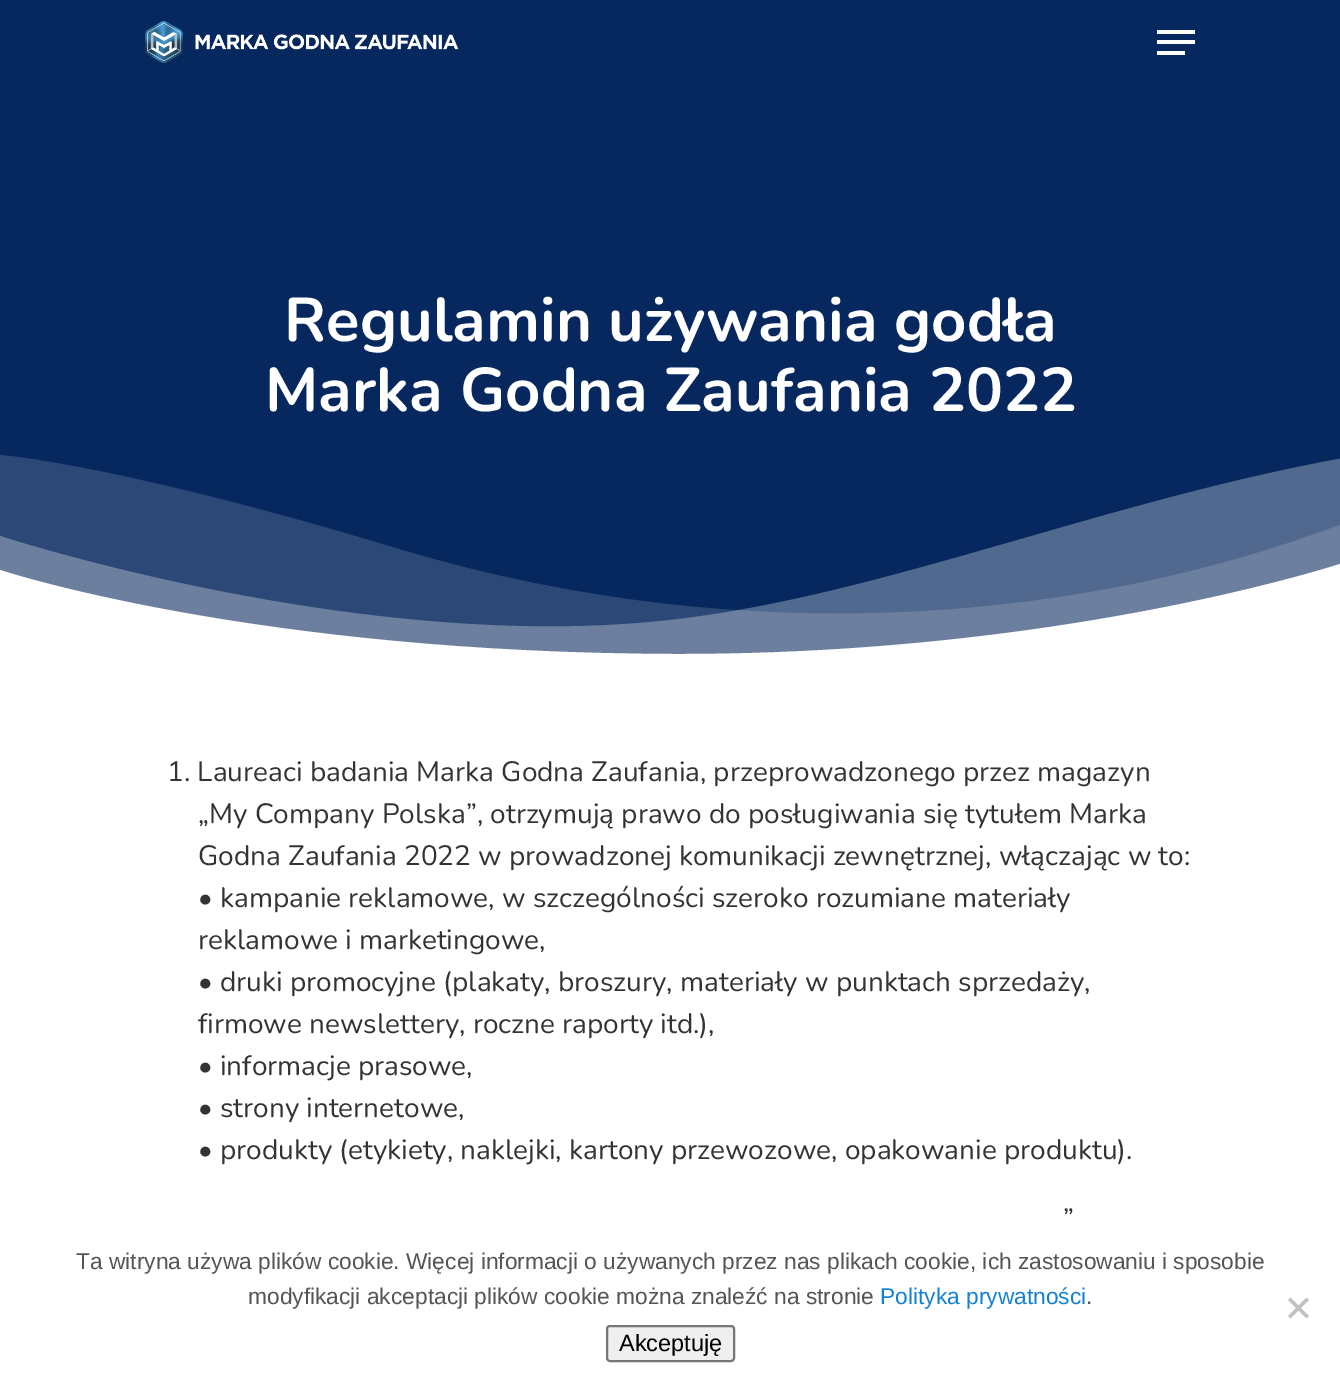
%!PS-Adobe-3.0
%%BoundingBox: 0 0 1340 1396
%%LanguageLevel: 3
%%Pages: 1
%%EndComments
%%BeginProlog
/setink { 3 { 255 div 3 1 roll } repeat setrgbcolor } def
/usefont { [ exch dup neg 0 0 3 -1 roll 0 0 ] selectfont } def
/drawtext { setink usefont moveto show } def
/fillbox { setink rectfill } def
/setalpha { dup .setfillconstantalpha .setstrokeconstantalpha } def
/rrect { 5 dict begin { /r /h /w /y /x } { exch def } forall
  x r add y moveto x w add y 2 copy h add r arct x w add y h add x 1 index r arct
  x y h add x y r arct x y 2 copy exch w add exch r arct closepath end } def
/drawimage { 5 dict begin { /h /w /y /x /name } { exch def } forall
  gsave x y translate w h scale
  w h 8 [w 0 0 h 0 0] name (r) file false 3 colorimage grestore end } def
%%EndProlog
%%BeginSetup
<< /PageSize [1340 1396] /PageUsesTransparency true >> setpagedevice
%%EndSetup
%%Page: 1 1
0 .pushpdf14devicefilter
0 1396 translate 1 -1 scale
4 setmiterlimit
0 0 1340 1396 255 255 255 fillbox
0 0 1340 654 7 40 94 fillbox
(assets/img1.rgb) 145 21 314 42 drawimage
1157 30 38 4 255 255 255 fillbox
1157 51 28 4 255 255 255 fillbox
1157 40 38 4 255 255 255 fillbox
(Regulamin używania godła) 284 341 /Nunito-Bold 61.6 255 255 255 drawtext
(Marka Godna Zaufania 2022) 265 411 /Nunito-Bold 61.6 255 255 255 drawtext
gsave
0 418 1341 263 rectclip
0.15 setalpha
0 455 moveto 0 455 119 464 402 550 curveto 751 654 1091 620 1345 523 curveto 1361 597 lineto 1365 691 lineto 0 691 lineto closepath fill
grestore
0.3 setalpha
0 536 moveto 0 536 363 655 670 620 curveto 881 597 1113 497 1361 455 curveto 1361 681 lineto 0 681 lineto closepath fill
1 setalpha
0 570 moveto 0 570 252 654 681 654 curveto 1070 654 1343 563 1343 563 curveto 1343 681 lineto 0 681 lineto closepath fill
(1. Laureaci badania Marka Godna Zaufania, przeprowadzonego przez magazyn) 167 781 /Nunito-Regular 28 51 51 51 drawtext
(„My Company Polska”, otrzymują prawo do posługiwania się tytułem Marka) 198 823 /Nunito-Regular 28 51 51 51 drawtext
(Godna Zaufania 2022 w prowadzonej komunikacji zewnętrznej, włączając w to:) 198 865 /Nunito-Regular 28 51 51 51 drawtext
(• kampanie reklamowe, w szczególności szeroko rozumiane materiały) 198 907 /Nunito-Regular 28 51 51 51 drawtext
(reklamowe i marketingowe,) 198 949 /Nunito-Regular 28 51 51 51 drawtext
(• druki promocyjne \(plakaty, broszury, materiały w punktach sprzedaży,) 198 991 /Nunito-Regular 28 51 51 51 drawtext
(firmowe newslettery, roczne raporty itd.\),) 198 1033 /Nunito-Regular 28 51 51 51 drawtext
(• informacje prasowe,) 198 1075 /Nunito-Regular 28 51 51 51 drawtext
(• strony internetowe,) 198 1117 /Nunito-Regular 28 51 51 51 drawtext
(• produkty \(etykiety, naklejki, kartony przewozowe, opakowanie produktu\).) 198 1159 /Nunito-Regular 28 51 51 51 drawtext
(”) 1063 1228 /Nunito-Regular 28 51 51 51 drawtext
(Ta witryna używa plików cookie. Więcej informacji o używanych przez nas plikach cookie, ich zastosowaniu i sposobie) 76 1269 /LiberationSans-Regular 22.75 85 85 85 drawtext
(modyfikacji akceptacji plików cookie można znaleźć na stronie) 248 1304 /LiberationSans-Regular 22.75 85 85 85 drawtext
(Polityka prywatności) 880 1304 /LiberationSans-Regular 22.75 20 130 212 drawtext
(.) 1086 1304 /LiberationSans-Regular 22.75 85 85 85 drawtext
192 192 192 setink
1306.5 1297.5 moveto 1309 1300 lineto 1290.5 1318.5 lineto 1288 1316 lineto closepath fill
1288 1300 moveto 1290.5 1297.5 lineto 1309 1316 lineto 1306.5 1318.5 lineto closepath fill
239 239 239 setink
607 1326 127 35 3 rrect gsave fill grestore
118 118 118 setink
2 setlinewidth
stroke
(Akceptuję) 619 1351 /LiberationSans-Regular 23.5 0 0 0 drawtext
.poppdf14devicefilter showpage
%%EOF
